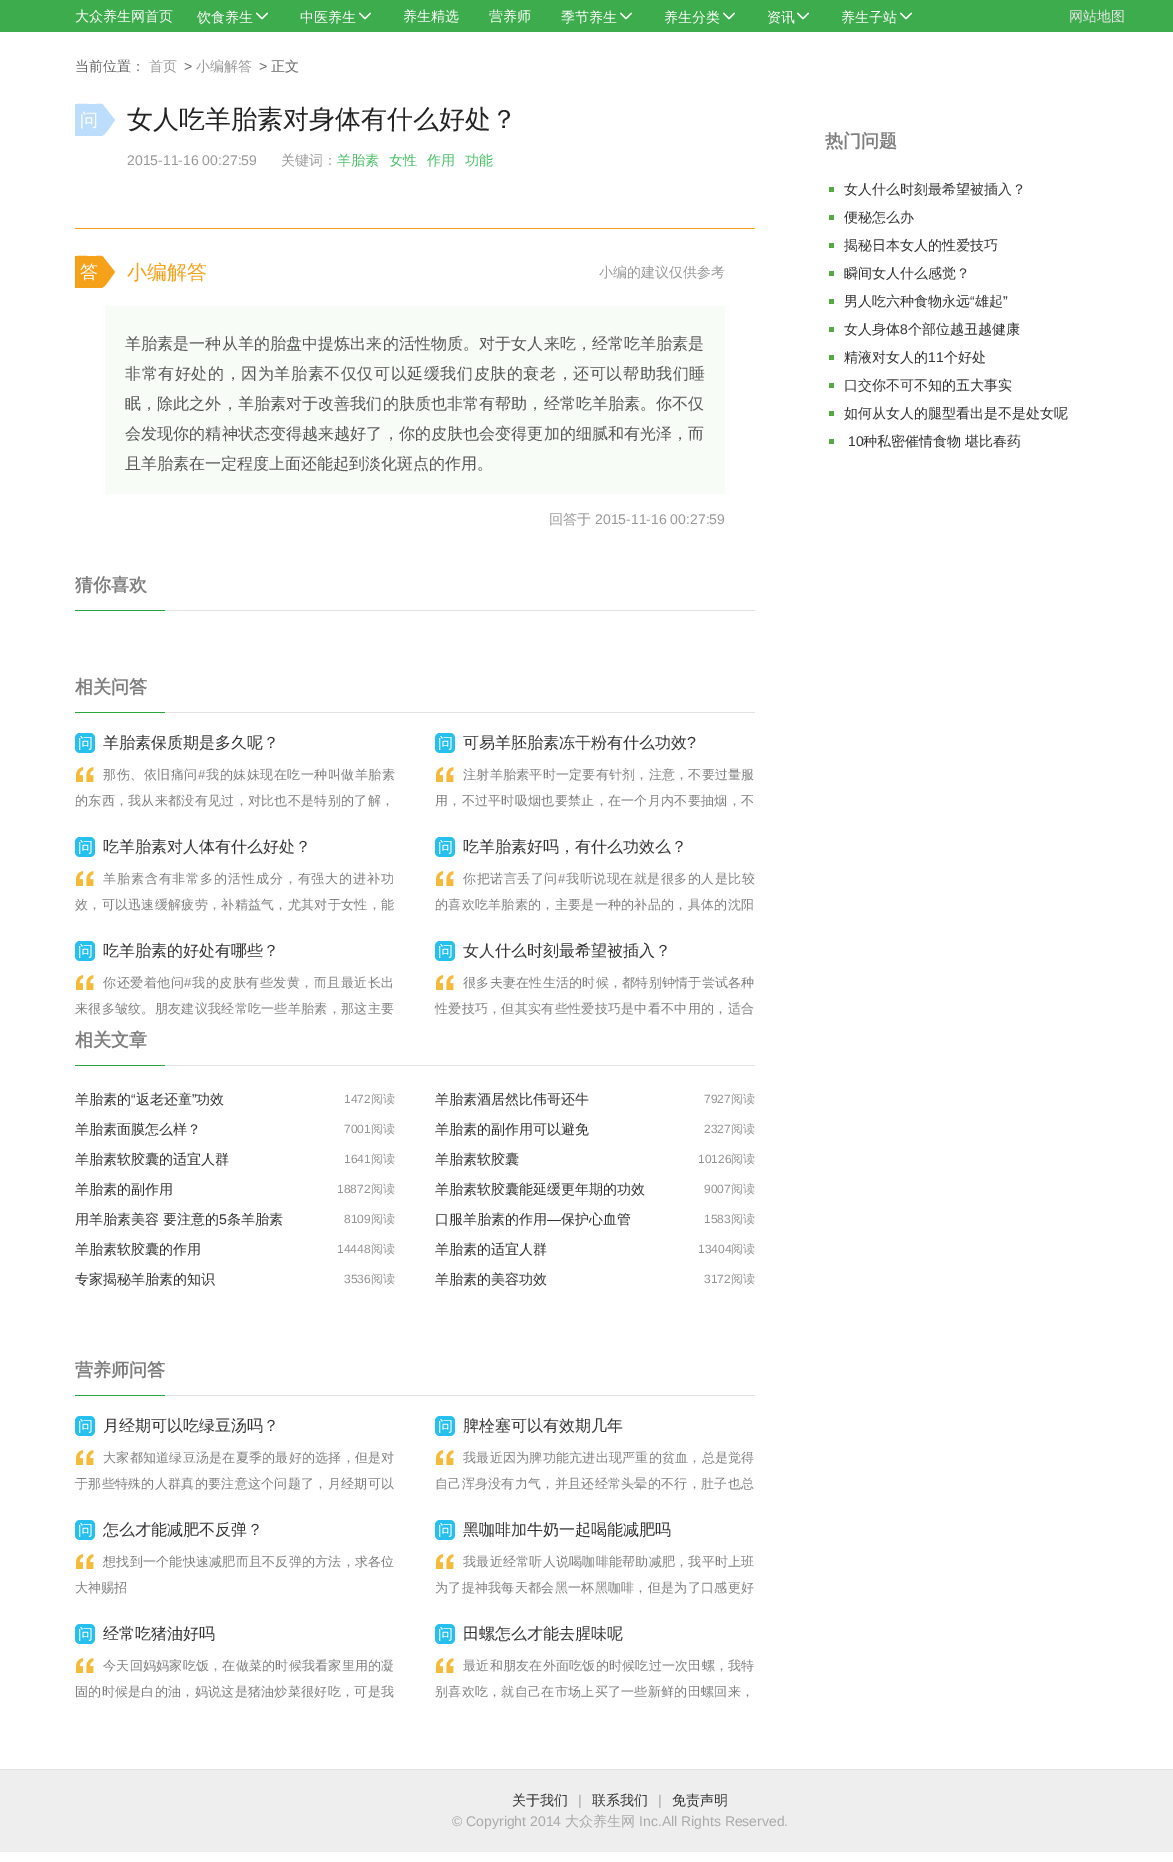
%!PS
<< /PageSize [1173 1862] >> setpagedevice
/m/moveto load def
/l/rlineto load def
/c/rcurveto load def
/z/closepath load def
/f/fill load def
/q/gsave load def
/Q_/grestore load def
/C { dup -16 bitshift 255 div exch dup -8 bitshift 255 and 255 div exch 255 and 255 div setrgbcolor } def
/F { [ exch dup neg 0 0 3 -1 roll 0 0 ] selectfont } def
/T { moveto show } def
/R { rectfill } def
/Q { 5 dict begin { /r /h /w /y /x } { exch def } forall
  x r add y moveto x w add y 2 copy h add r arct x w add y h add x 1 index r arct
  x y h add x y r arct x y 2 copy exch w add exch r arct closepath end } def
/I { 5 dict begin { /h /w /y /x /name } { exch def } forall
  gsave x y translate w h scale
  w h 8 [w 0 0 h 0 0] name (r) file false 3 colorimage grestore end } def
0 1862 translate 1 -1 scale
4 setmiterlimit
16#FFFFFF C
0 0 1173 1862 R
16#3CAC4C C
0 0 1173 32 R
/WenQuanYiZenHei-Medium 14 F
16#FFFFFF C
(大众养生网首页) 75 21 T
(饮食养生) 197 22 T
(1.rgb) 256 12 12 8 I
(中医养生) 300 22 T
(1.rgb) 359 12 12 8 I
(养生精选) 403 21 T
(营养师) 489 21 T
(季节养生) 561 22 T
(1.rgb) 620 12 12 8 I
(养生分类) 664 22 T
(1.rgb) 723 12 12 8 I
(资讯) 767 22 T
(1.rgb) 797 12 12 8 I
(养生子站) 841 22 T
(1.rgb) 900 12 12 8 I
16#E5E5E5 C
(网站地图) 1069 21 T
16#666666 C
(当前位置：) 75 71 T
16#999999 C
(首页) 149 71 T
/LiberationSans-Regular 14 F
16#666666 C
(>) 184 71 T
/WenQuanYiZenHei-Medium 14 F
16#999999 C
(小编解答) 196 71 T
/LiberationSans-Regular 14 F
16#666666 C
(>) 259 71 T
/WenQuanYiZenHei-Medium 14 F
(正文) 271 71 T
q
75 77 680 1652 rectclip
16#BDDDFC C
104 106 m -1 -3 -5 -2 -8 -2 c -8 0 l -21 0 -18 -2 -18 20 c 0 10 -1 12 9 12 c 22 0 l 3 0 5 -4 7 -6 c 7 -10 l z f
Q_
/WenQuanYiZenHei-Medium 18 F
16#FFFFFF C
(问) 80 126 T
/WenQuanYiZenHei-Medium 26 F
16#222222 C
(女人吃羊胎素对身体有什么好处？) 127 128 T
/LiberationSans-Regular 14 F
16#999999 C
(2015-11-16 00:27:59) 127 165 T
/WenQuanYiZenHei-Medium 14 F
(关键词：) 281 165 T
16#49C066 C
(羊胎素) 337 165 T
(女性) 389 165 T
(作用) 427 165 T
(功能) 465 165 T
16#F6A11A C
75 228 680 1 R
q
75 77 680 1652 rectclip
104 258 m -1 -3 -5 -2 -8 -2 c -8 0 l -21 0 -18 -2 -18 20 c 0 10 -1 12 9 12 c 22 0 l 3 0 5 -4 7 -6 c 7 -10 l z f
Q_
/WenQuanYiZenHei-Medium 18 F
16#FFFFFF C
(答) 80 278 T
/WenQuanYiZenHei-Medium 20 F
16#F6A11A C
(小编解答) 127 279 T
/WenQuanYiZenHei-Medium 14 F
16#999999 C
(小编的建议仅供参考) 599 277 T
16#F7FCF6 C
105 306 620 188 R
/WenQuanYiZenHei-Medium 16 F
16#555555 C
125 349 m .1 0 (羊胎素是一种从羊的胎盘中提炼出来的活性物质。对于女人来吃，经常吃羊胎素是) ashow
125 379 m .6 0 (非常有好处的，因为羊胎素不仅仅可以延缓我们皮肤的衰老，还可以帮助我们睡) ashow
125 409 m .1 0 (眠，除此之外，羊胎素对于改善我们的肤质也非常有帮助，经常吃羊胎素。你不仅) ashow
125 439 m .1 0 (会发现你的精神状态变得越来越好了，你的皮肤也会变得更加的细腻和有光泽，而) ashow
(且羊胎素在一定程度上面还能起到淡化斑点的作用。) 125 469 T
/WenQuanYiZenHei-Medium 14 F
16#999999 C
(回答于) 549 524 T
/LiberationSans-Regular 14 F
(2015-11-16 00:27:59) 595 524 T
16#E3E3E3 C
165 610 590 1 R
16#2AA53B C
75 610 90 1 R
/WenQuanYiZenHei-Bold 18 F
16#7F7F7F C
(猜你喜欢) 75 591 T
16#E3E3E3 C
165 712 590 1 R
16#2AA53B C
75 712 90 1 R
16#7F7F7F C
(相关问答) 75 693 T
16#25C0ED C
75 733 20 20 5 Q f
/WenQuanYiZenHei-Medium 15 F
16#FFFFFF C
(问) 78 748 T
/WenQuanYiZenHei-Medium 16 F
16#333333 C
(羊胎素保质期是多久呢？) 103 748 T
(2.rgb) 76 767 18 15 I
/WenQuanYiZenHei-Medium 13 F
16#7F7F7F C
103 779 m .5 0 (那伤、依旧痛问) ashow
/LiberationSans-Regular 13 F
198 779 m .5 0 (#) ashow
/WenQuanYiZenHei-Medium 13 F
206 779 m .5 0 (我的妹妹现在吃一种叫做羊胎素) ashow
75 805 m .3 0 (的东西，我从来都没有见过，对比也不是特别的了解，) ashow
16#25C0ED C
435 733 20 20 5 Q f
/WenQuanYiZenHei-Medium 15 F
16#FFFFFF C
(问) 438 748 T
/WenQuanYiZenHei-Medium 16 F
16#333333 C
(可易羊胚胎素冻干粉有什么功效) 463 748 T
/LiberationSans-Regular 16 F
(?) 687 748 T
(2.rgb) 436 767 18 15 I
/WenQuanYiZenHei-Medium 13 F
16#7F7F7F C
463 779 m .25 0 (注射羊胎素平时一定要有针剂，注意，不要过量服) ashow
435 805 m .3 0 (用，不过平时吸烟也要禁止，在一个月内不要抽烟，不) ashow
16#25C0ED C
75 837 20 20 5 Q f
/WenQuanYiZenHei-Medium 15 F
16#FFFFFF C
(问) 78 852 T
/WenQuanYiZenHei-Medium 16 F
16#333333 C
(吃羊胎素对人体有什么好处？) 103 852 T
(2.rgb) 76 871 18 15 I
/WenQuanYiZenHei-Medium 13 F
16#7F7F7F C
103 883 m .9 0 (羊胎素含有非常多的活性成分，有强大的进补功) ashow
75 909 m .3 0 (效，可以迅速缓解疲劳，补精益气，尤其对于女性，能) ashow
16#25C0ED C
435 837 20 20 5 Q f
/WenQuanYiZenHei-Medium 15 F
16#FFFFFF C
(问) 438 852 T
/WenQuanYiZenHei-Medium 16 F
16#333333 C
(吃羊胎素好吗，有什么功效么？) 463 852 T
(2.rgb) 436 871 18 15 I
/WenQuanYiZenHei-Medium 13 F
16#7F7F7F C
463 883 m .5 0 (你把诺言丢了问) ashow
/LiberationSans-Regular 13 F
558 883 m .5 0 (#) ashow
/WenQuanYiZenHei-Medium 13 F
566 883 m .5 0 (我听说现在就是很多的人是比较) ashow
435 909 m .3 0 (的喜欢吃羊胎素的，主要是一种的补品的，具体的沈阳) ashow
16#25C0ED C
75 941 20 20 5 Q f
/WenQuanYiZenHei-Medium 15 F
16#FFFFFF C
(问) 78 956 T
/WenQuanYiZenHei-Medium 16 F
16#333333 C
(吃羊胎素的好处有哪些？) 103 956 T
(2.rgb) 76 975 18 15 I
/WenQuanYiZenHei-Medium 13 F
16#7F7F7F C
103 987 m .5 0 (你还爱着他问) ashow
/LiberationSans-Regular 13 F
184 987 m .5 0 (#) ashow
/WenQuanYiZenHei-Medium 13 F
192 987 m .5 0 (我的皮肤有些发黄，而且最近长出) ashow
75 1013 m .3 0 (来很多皱纹。朋友建议我经常吃一些羊胎素，那这主要) ashow
16#25C0ED C
435 941 20 20 5 Q f
/WenQuanYiZenHei-Medium 15 F
16#FFFFFF C
(问) 438 956 T
/WenQuanYiZenHei-Medium 16 F
16#333333 C
(女人什么时刻最希望被插入？) 463 956 T
(2.rgb) 436 975 18 15 I
/WenQuanYiZenHei-Medium 13 F
16#7F7F7F C
463 987 m .25 0 (很多夫妻在性生活的时候，都特别钟情于尝试各种) ashow
435 1013 m .3 0 (性爱技巧，但其实有些性爱技巧是中看不中用的，适合) ashow
16#E3E3E3 C
165 1065 590 1 R
16#2AA53B C
75 1065 90 1 R
/WenQuanYiZenHei-Bold 18 F
16#7F7F7F C
(相关文章) 75 1046 T
/WenQuanYiZenHei-Medium 14 F
16#333333 C
(羊胎素的) 75 1104 T
/LiberationSans-Regular 14 F
(“) 131 1104 T
/WenQuanYiZenHei-Medium 14 F
(返老还童) 136 1104 T
/LiberationSans-Regular 14 F
(”) 192 1104 T
/WenQuanYiZenHei-Medium 14 F
(功效) 196 1104 T
/LiberationSans-Regular 12 F
16#939393 C
(1472) 344 1103 T
/WenQuanYiZenHei-Medium 12 F
(阅读) 371 1103 T
/WenQuanYiZenHei-Medium 14 F
16#333333 C
(羊胎素面膜怎么样？) 75 1134 T
/LiberationSans-Regular 12 F
16#939393 C
(7001) 344 1133 T
/WenQuanYiZenHei-Medium 12 F
(阅读) 371 1133 T
/WenQuanYiZenHei-Medium 14 F
16#333333 C
(羊胎素软胶囊的适宜人群) 75 1164 T
/LiberationSans-Regular 12 F
16#939393 C
(1641) 344 1163 T
/WenQuanYiZenHei-Medium 12 F
(阅读) 371 1163 T
/WenQuanYiZenHei-Medium 14 F
16#333333 C
(羊胎素的副作用) 75 1194 T
/LiberationSans-Regular 12 F
16#939393 C
(18872) 337 1193 T
/WenQuanYiZenHei-Medium 12 F
(阅读) 371 1193 T
/WenQuanYiZenHei-Medium 14 F
16#333333 C
(用羊胎素美容 要注意的) 75 1224 T
/LiberationSans-Regular 14 F
(5) 219 1224 T
/WenQuanYiZenHei-Medium 14 F
(条羊胎素) 227 1224 T
/LiberationSans-Regular 12 F
16#939393 C
(8109) 344 1223 T
/WenQuanYiZenHei-Medium 12 F
(阅读) 371 1223 T
/WenQuanYiZenHei-Medium 14 F
16#333333 C
(羊胎素软胶囊的作用) 75 1254 T
/LiberationSans-Regular 12 F
16#939393 C
(14448) 337 1253 T
/WenQuanYiZenHei-Medium 12 F
(阅读) 371 1253 T
/WenQuanYiZenHei-Medium 14 F
16#333333 C
(专家揭秘羊胎素的知识) 75 1284 T
/LiberationSans-Regular 12 F
16#939393 C
(3536) 344 1283 T
/WenQuanYiZenHei-Medium 12 F
(阅读) 371 1283 T
/WenQuanYiZenHei-Medium 14 F
16#333333 C
(羊胎素酒居然比伟哥还牛) 435 1104 T
/LiberationSans-Regular 12 F
16#939393 C
(7927) 704 1103 T
/WenQuanYiZenHei-Medium 12 F
(阅读) 731 1103 T
/WenQuanYiZenHei-Medium 14 F
16#333333 C
(羊胎素的副作用可以避免) 435 1134 T
/LiberationSans-Regular 12 F
16#939393 C
(2327) 704 1133 T
/WenQuanYiZenHei-Medium 12 F
(阅读) 731 1133 T
/WenQuanYiZenHei-Medium 14 F
16#333333 C
(羊胎素软胶囊) 435 1164 T
/LiberationSans-Regular 12 F
16#939393 C
(10126) 698 1163 T
/WenQuanYiZenHei-Medium 12 F
(阅读) 731 1163 T
/WenQuanYiZenHei-Medium 14 F
16#333333 C
(羊胎素软胶囊能延缓更年期的功效) 435 1194 T
/LiberationSans-Regular 12 F
16#939393 C
(9007) 704 1193 T
/WenQuanYiZenHei-Medium 12 F
(阅读) 731 1193 T
/WenQuanYiZenHei-Medium 14 F
16#333333 C
(口服羊胎素的作用) 435 1224 T
/LiberationSans-Regular 14 F
(—) 547 1224 T
/WenQuanYiZenHei-Medium 14 F
(保护心血管) 561 1224 T
/LiberationSans-Regular 12 F
16#939393 C
(1583) 704 1223 T
/WenQuanYiZenHei-Medium 12 F
(阅读) 731 1223 T
/WenQuanYiZenHei-Medium 14 F
16#333333 C
(羊胎素的适宜人群) 435 1254 T
/LiberationSans-Regular 12 F
16#939393 C
(13404) 698 1253 T
/WenQuanYiZenHei-Medium 12 F
(阅读) 731 1253 T
/WenQuanYiZenHei-Medium 14 F
16#333333 C
(羊胎素的美容功效) 435 1284 T
/LiberationSans-Regular 12 F
16#939393 C
(3172) 704 1283 T
/WenQuanYiZenHei-Medium 12 F
(阅读) 731 1283 T
16#E3E3E3 C
165 1395 590 1 R
16#2AA53B C
75 1395 90 1 R
/WenQuanYiZenHei-Bold 18 F
16#7F7F7F C
(营养师问答) 75 1376 T
16#25C0ED C
75 1416 20 20 5 Q f
/WenQuanYiZenHei-Medium 15 F
16#FFFFFF C
(问) 78 1431 T
/WenQuanYiZenHei-Medium 16 F
16#333333 C
(月经期可以吃绿豆汤吗？) 103 1431 T
(2.rgb) 76 1450 18 15 I
/WenQuanYiZenHei-Medium 13 F
16#7F7F7F C
103 1462 m .25 0 (大家都知道绿豆汤是在夏季的最好的选择，但是对) ashow
75 1488 m .3 0 (于那些特殊的人群真的要注意这个问题了，月经期可以) ashow
16#25C0ED C
435 1416 20 20 5 Q f
/WenQuanYiZenHei-Medium 15 F
16#FFFFFF C
(问) 438 1431 T
/WenQuanYiZenHei-Medium 16 F
16#333333 C
(脾栓塞可以有效期几年) 463 1431 T
(2.rgb) 436 1450 18 15 I
/WenQuanYiZenHei-Medium 13 F
16#7F7F7F C
463 1462 m .25 0 (我最近因为脾功能亢进出现严重的贫血，总是觉得) ashow
435 1488 m .3 0 (自己浑身没有力气，并且还经常头晕的不行，肚子也总) ashow
16#25C0ED C
75 1520 20 20 5 Q f
/WenQuanYiZenHei-Medium 15 F
16#FFFFFF C
(问) 78 1535 T
/WenQuanYiZenHei-Medium 16 F
16#333333 C
(怎么才能减肥不反弹？) 103 1535 T
(2.rgb) 76 1554 18 15 I
/WenQuanYiZenHei-Medium 13 F
16#7F7F7F C
103 1566 m .25 0 (想找到一个能快速减肥而且不反弹的方法，求各位) ashow
(大神赐招) 75 1592 T
16#25C0ED C
435 1520 20 20 5 Q f
/WenQuanYiZenHei-Medium 15 F
16#FFFFFF C
(问) 438 1535 T
/WenQuanYiZenHei-Medium 16 F
16#333333 C
(黑咖啡加牛奶一起喝能减肥吗) 463 1535 T
(2.rgb) 436 1554 18 15 I
/WenQuanYiZenHei-Medium 13 F
16#7F7F7F C
463 1566 m .25 0 (我最近经常听人说喝咖啡能帮助减肥，我平时上班) ashow
435 1592 m .3 0 (为了提神我每天都会黑一杯黑咖啡，但是为了口感更好) ashow
16#25C0ED C
75 1624 20 20 5 Q f
/WenQuanYiZenHei-Medium 15 F
16#FFFFFF C
(问) 78 1639 T
/WenQuanYiZenHei-Medium 16 F
16#333333 C
(经常吃猪油好吗) 103 1639 T
(2.rgb) 76 1658 18 15 I
/WenQuanYiZenHei-Medium 13 F
16#7F7F7F C
103 1670 m .25 0 (今天回妈妈家吃饭，在做菜的时候我看家里用的凝) ashow
75 1696 m .3 0 (固的时候是白的油，妈说这是猪油炒菜很好吃，可是我) ashow
16#25C0ED C
435 1624 20 20 5 Q f
/WenQuanYiZenHei-Medium 15 F
16#FFFFFF C
(问) 438 1639 T
/WenQuanYiZenHei-Medium 16 F
16#333333 C
(田螺怎么才能去腥味呢) 463 1639 T
(2.rgb) 436 1658 18 15 I
/WenQuanYiZenHei-Medium 13 F
16#7F7F7F C
463 1670 m .25 0 (最近和朋友在外面吃饭的时候吃过一次田螺，我特) ashow
435 1696 m .3 0 (别喜欢吃，就自己在市场上买了一些新鲜的田螺回来，) ashow
/WenQuanYiZenHei-Bold 18 F
(热门问题) 825 147 T
16#56A844 C
829 187 5 5 R
/WenQuanYiZenHei-Medium 14 F
16#333333 C
(女人什么时刻最希望被插入？) 844 194 T
16#56A844 C
829 215 5 5 R
16#333333 C
(便秘怎么办) 844 222 T
16#56A844 C
829 243 5 5 R
16#333333 C
(揭秘日本女人的性爱技巧) 844 250 T
16#56A844 C
829 271 5 5 R
16#333333 C
(瞬间女人什么感觉？) 844 278 T
16#56A844 C
829 299 5 5 R
16#333333 C
(男人吃六种食物永远) 844 306 T
/LiberationSans-Regular 14 F
(“) 970 306 T
/WenQuanYiZenHei-Medium 14 F
(雄起) 975 306 T
/LiberationSans-Regular 14 F
(”) 1003 306 T
16#56A844 C
829 327 5 5 R
/WenQuanYiZenHei-Medium 14 F
16#333333 C
(女人身体) 844 334 T
/LiberationSans-Regular 14 F
(8) 900 334 T
/WenQuanYiZenHei-Medium 14 F
(个部位越丑越健康) 908 334 T
16#56A844 C
829 355 5 5 R
16#333333 C
(精液对女人的) 844 362 T
/LiberationSans-Regular 14 F
(11) 928 362 T
/WenQuanYiZenHei-Medium 14 F
(个好处) 944 362 T
16#56A844 C
829 383 5 5 R
16#333333 C
(口交你不可不知的五大事实) 844 390 T
16#56A844 C
829 411 5 5 R
16#333333 C
(如何从女人的腿型看出是不是处女呢) 844 418 T
16#56A844 C
829 439 5 5 R
/LiberationSans-Regular 14 F
16#333333 C
(10) 848 446 T
/WenQuanYiZenHei-Medium 14 F
(种私密催情食物 堪比春药) 863 446 T
16#EEEEEE C
0 1770 1173 82 R
16#E2E2E2 C
0 1769 1173 1 R
16#333333 C
(关于我们) 512 1805 T
/LiberationSans-Regular 14 F
16#AAAAAA C
(|) 578 1805 T
/WenQuanYiZenHei-Medium 14 F
16#333333 C
(联系我们) 592 1805 T
/LiberationSans-Regular 14 F
16#AAAAAA C
(|) 658 1805 T
/WenQuanYiZenHei-Medium 14 F
16#333333 C
(免责声明) 672 1805 T
/LiberationSans-Regular 14 F
16#AAAAAA C
(© Copyright 2014) 452 1826 T
/WenQuanYiZenHei-Medium 14 F
(大众养生网) 565 1826 T
/LiberationSans-Regular 14 F
(Inc.All Rights Reserved.) 639 1826 T
showpage
